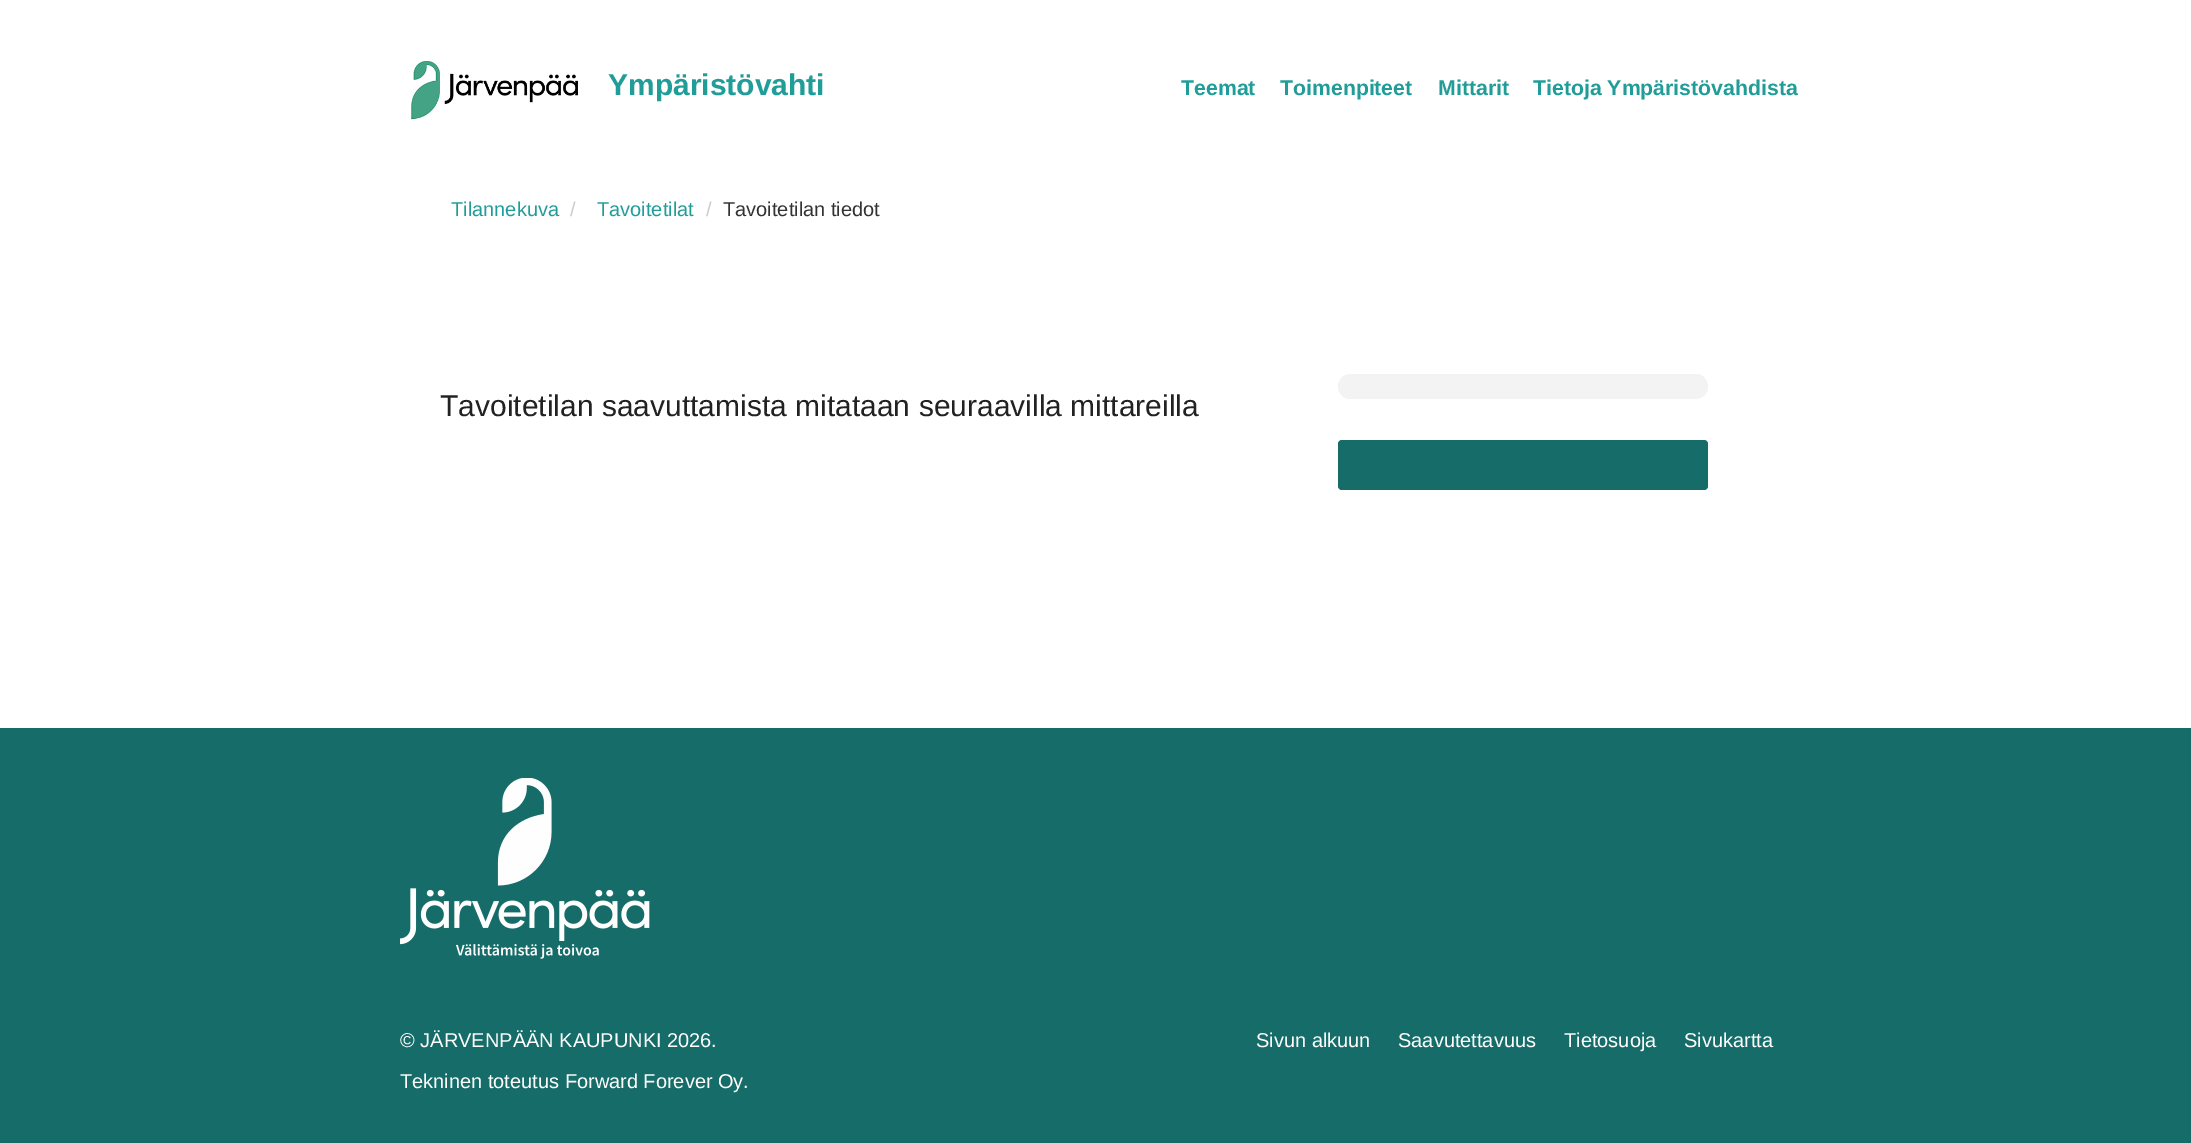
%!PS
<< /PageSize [2191 1143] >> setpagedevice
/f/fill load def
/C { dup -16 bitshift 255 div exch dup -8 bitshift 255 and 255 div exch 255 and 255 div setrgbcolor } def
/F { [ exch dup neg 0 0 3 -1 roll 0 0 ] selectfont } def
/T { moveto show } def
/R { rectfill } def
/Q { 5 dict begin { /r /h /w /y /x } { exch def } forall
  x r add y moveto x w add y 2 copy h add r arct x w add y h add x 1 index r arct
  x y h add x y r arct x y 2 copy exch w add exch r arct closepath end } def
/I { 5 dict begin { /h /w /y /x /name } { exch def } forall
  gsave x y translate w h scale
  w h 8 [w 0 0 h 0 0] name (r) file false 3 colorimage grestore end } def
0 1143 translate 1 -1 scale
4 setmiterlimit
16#FFFFFF C
0 0 2191 1143 R
(1.rgb) 411 61 167 59 I
/LiberationSans-Bold 30 F
16#219D99 C
(Ympäristövahti) 608 95 T
/LiberationSans-Bold 21.25 F
(Teemat) 1181 95 T
(Toimenpiteet) 1280 95 T
(Mittarit) 1438 95 T
(Tietoja Ympäristövahdista) 1533 95 T
/LiberationSans-Regular 20 F
(Tilannekuva) 451 216 T
16#CCCCCC C
(/) 570 216 T
16#219D99 C
(Tavoitetilat) 597 216 T
16#CCCCCC C
(/) 706 216 T
16#333333 C
(Tavoitetilan tiedot) 723 216 T
/LiberationSans-Regular 30 F
16#232222 C
(Tavoitetilan saavuttamista mitataan seuraavilla mittareilla) 440 416 T
16#F3F3F3 C
1338 374 370 25 12.5 Q f
16#166C68 C
1338 440 370 50 4 Q f
0 728 2191 415 R
(2.rgb) 400 778 250 181 I
/LiberationSans-Regular 20 F
16#FFFFFF C
(© JÄRVENPÄÄN KAUPUNKI 2026.) 400 1047 T
(Tekninen toteutus Forward Forever Oy.) 400 1088 T
(Sivun alkuun) 1256 1047 T
(Saavutettavuus) 1398 1047 T
(Tietosuoja) 1564 1047 T
(Sivukartta) 1684 1047 T
showpage
